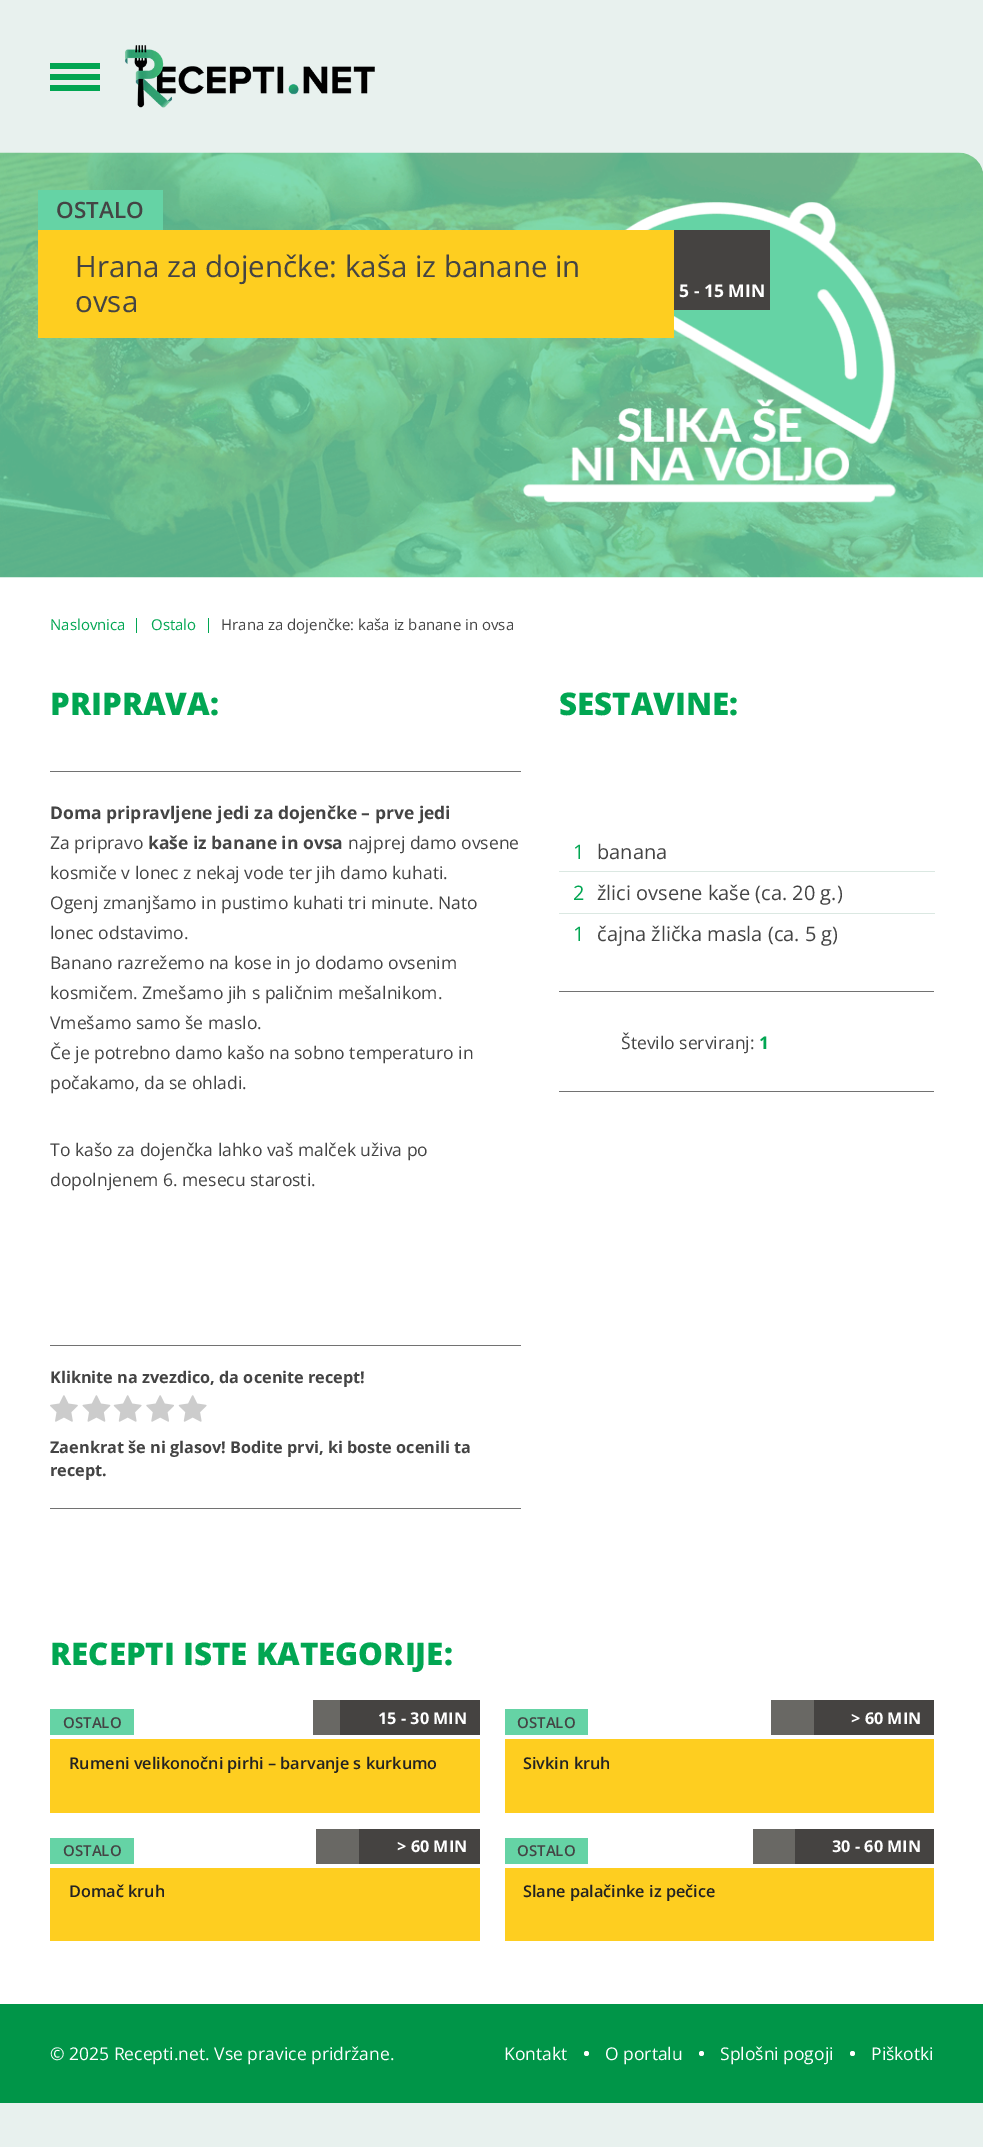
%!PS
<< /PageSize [983 2147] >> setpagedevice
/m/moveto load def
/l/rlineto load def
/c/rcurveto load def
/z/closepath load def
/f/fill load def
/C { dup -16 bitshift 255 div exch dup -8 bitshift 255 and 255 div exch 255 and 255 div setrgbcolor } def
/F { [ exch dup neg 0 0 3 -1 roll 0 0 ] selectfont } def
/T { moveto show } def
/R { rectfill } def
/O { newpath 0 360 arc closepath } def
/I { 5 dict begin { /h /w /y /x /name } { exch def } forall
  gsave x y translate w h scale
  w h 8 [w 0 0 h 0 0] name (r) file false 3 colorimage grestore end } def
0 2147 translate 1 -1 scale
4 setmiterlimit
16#E8F1EE C
0 0 983 2147 R
16#01A652 C
50 63 50 6 R
50 74 50 6 R
50 85 50 6 R
(1.rgb) 125 45 250 63 I
16#FFFFFF C
0 153 m 959 0 l 14 0 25 11 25 25 c 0 1925 l -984 0 l z f
(2.rgb) 0 152 983 426 I
16#65D3A5 C
38 190 125 40 R
/OpenSans-SemiBold 22.5 F
16#444444 C
(OSTALO) 56 218 T
16#FECE20 C
38 230 636 108 R
/OpenSans-Regular 29.5 F
16#444444 C
(Hrana za dojenčke: kaša iz banane in) 75 277 T
(ovsa) 75 312 T
16#454341 C
674 230 96 80 R
/OpenSans-Bold 17.5 F
16#FFFFFF C
(5 - 15 MIN) 679 297 T
/OpenSans-Regular 15 F
16#01A652 C
(Naslovnica) 50 630 T
136 618 1 15 R
(Ostalo) 151 630 T
208 618 1 15 R
16#444444 C
(Hrana za dojenčke: kaša iz banane in ovsa) 221 630 T
16#727272 C
50 771 471 1 R
/OpenSans-ExtraBold 31.25 F
16#01A652 C
(PRIPRAVA:) 50 715 T
/OpenSans-Bold 17.5 F
16#444444 C
(Doma pripravljene jedi za dojenčke – prve jedi) 50 819 T
/OpenSans-Regular 17.5 F
(Za pripravo) 50 849 T
/OpenSans-Bold 17.5 F
(kaše iz banane in ovsa) 148 849 T
/OpenSans-Regular 17.5 F
(najprej damo ovsene) 348 849 T
(kosmiče v lonec z nekaj vode ter jih damo kuhati.) 50 879 T
(Ogenj zmanjšamo in pustimo kuhati tri minute. Nato) 50 909 T
(lonec odstavimo.) 50 939 T
(Banano razrežemo na kose in jo dodamo ovsenim) 50 969 T
(kosmičem. Zmešamo jih s paličnim mešalnikom.) 50 999 T
(Vmešamo samo še maslo.) 50 1029 T
(Če je potrebno damo kašo na sobno temperaturo in) 50 1059 T
(počakamo, da se ohladi.) 50 1089 T
(To kašo za dojenčka lahko vaš malček uživa po) 50 1156 T
(dopolnjenem 6. mesecu starosti.) 50 1186 T
/OpenSans-ExtraBold 31.25 F
16#01A652 C
(SESTAVINE:) 559 715 T
16#727272 C
559 991 375 1 R
/OpenSans-Regular 20 F
16#01A652 C
(1) 573 859 T
16#DBE8E2 C
559 871 376 1 R
16#444444 C
(banana) 597 859 T
16#01A652 C
(2) 573 900 T
16#DBE8E2 C
559 913 376 1 R
16#444444 C
(žlici ovsene kaše \(ca. 20 g.\)) 597 900 T
16#01A652 C
(1) 573 941 T
16#444444 C
(čajna žlička masla \(ca. 5 g\)) 597 941 T
16#727272 C
559 1091 375 1 R
/OpenSans-Regular 17.5 F
16#444444 C
(Število serviranj:) 621 1049 T
/OpenSans-Bold 17.5 F
16#01A652 C
(1) 759 1049 T
16#727272 C
50 1345 471 1 R
50 1508 471 1 R
/OpenSans-Bold 16.25 F
16#444444 C
(Kliknite na zvezdico, da ocenite recept!) 50 1383 T
(3.rgb) 50 1395 28 27 I
(4.rgb) 82 1395 29 27 I
(5.rgb) 113 1395 29 27 I
(6.rgb) 146 1395 28 27 I
(5.rgb) 178 1395 29 27 I
(Zaenkrat še ni glasov! Bodite prvi, ki boste ocenili ta) 50 1453 T
(recept.) 50 1476 T
/OpenSans-ExtraBold 31.25 F
16#01A652 C
(RECEPTI ISTE KATEGORIJE:) 50 1665 T
16#65D3A5 C
50 1709 84 26 R
/OpenSans-SemiBold 15 F
16#444444 C
(OSTALO) 63 1728 T
16#696864 C
313 1700 27 35 R
16#454341 C
340 1700 140 35 R
/OpenSans-Bold 16.25 F
16#FFFFFF C
(15 - 30 MIN) 378 1724 T
16#FECE20 C
50 1739 430 74 R
/OpenSans-SemiBold 16.25 F
16#222222 C
(Rumeni velikonočni pirhi – barvanje s kurkumo) 69 1769 T
16#65D3A5 C
505 1709 83 26 R
/OpenSans-SemiBold 15 F
16#444444 C
(OSTALO) 517 1728 T
16#696864 C
771 1700 43 35 R
16#454341 C
814 1700 120 35 R
/OpenSans-Bold 16.25 F
16#FFFFFF C
(> 60 MIN) 851 1724 T
16#FECE20 C
505 1739 429 74 R
/OpenSans-SemiBold 16.25 F
16#222222 C
(Sivkin kruh) 523 1769 T
16#65D3A5 C
50 1838 84 26 R
/OpenSans-SemiBold 15 F
16#444444 C
(OSTALO) 63 1856 T
16#696864 C
316 1829 43 35 R
16#454341 C
359 1829 121 35 R
/OpenSans-Bold 16.25 F
16#FFFFFF C
(> 60 MIN) 397 1852 T
16#FECE20 C
50 1868 430 73 R
/OpenSans-SemiBold 16.25 F
16#222222 C
(Domač kruh) 69 1897 T
16#65D3A5 C
505 1838 83 26 R
/OpenSans-SemiBold 15 F
16#444444 C
(OSTALO) 517 1856 T
16#696864 C
753 1829 42 35 R
16#454341 C
795 1829 139 35 R
/OpenSans-Bold 16.25 F
16#FFFFFF C
(30 - 60 MIN) 832 1852 T
16#FECE20 C
505 1868 429 73 R
/OpenSans-SemiBold 16.25 F
16#222222 C
(Slane palačinke iz pečice) 523 1897 T
16#009548 C
0 2004 983 99 R
/OpenSans-Regular 17.5 F
16#FFFFFF C
(© 2025 Recepti.net. Vse pravice pridržane.) 50 2060 T
(Kontakt) 504 2060 T
586.5 2053.5 2.5 O f
(O portalu) 605 2060 T
701.5 2053.5 2.5 O f
(Splošni pogoji) 720 2060 T
852.5 2053.5 2.5 O f
(Piškotki) 871 2060 T
showpage
